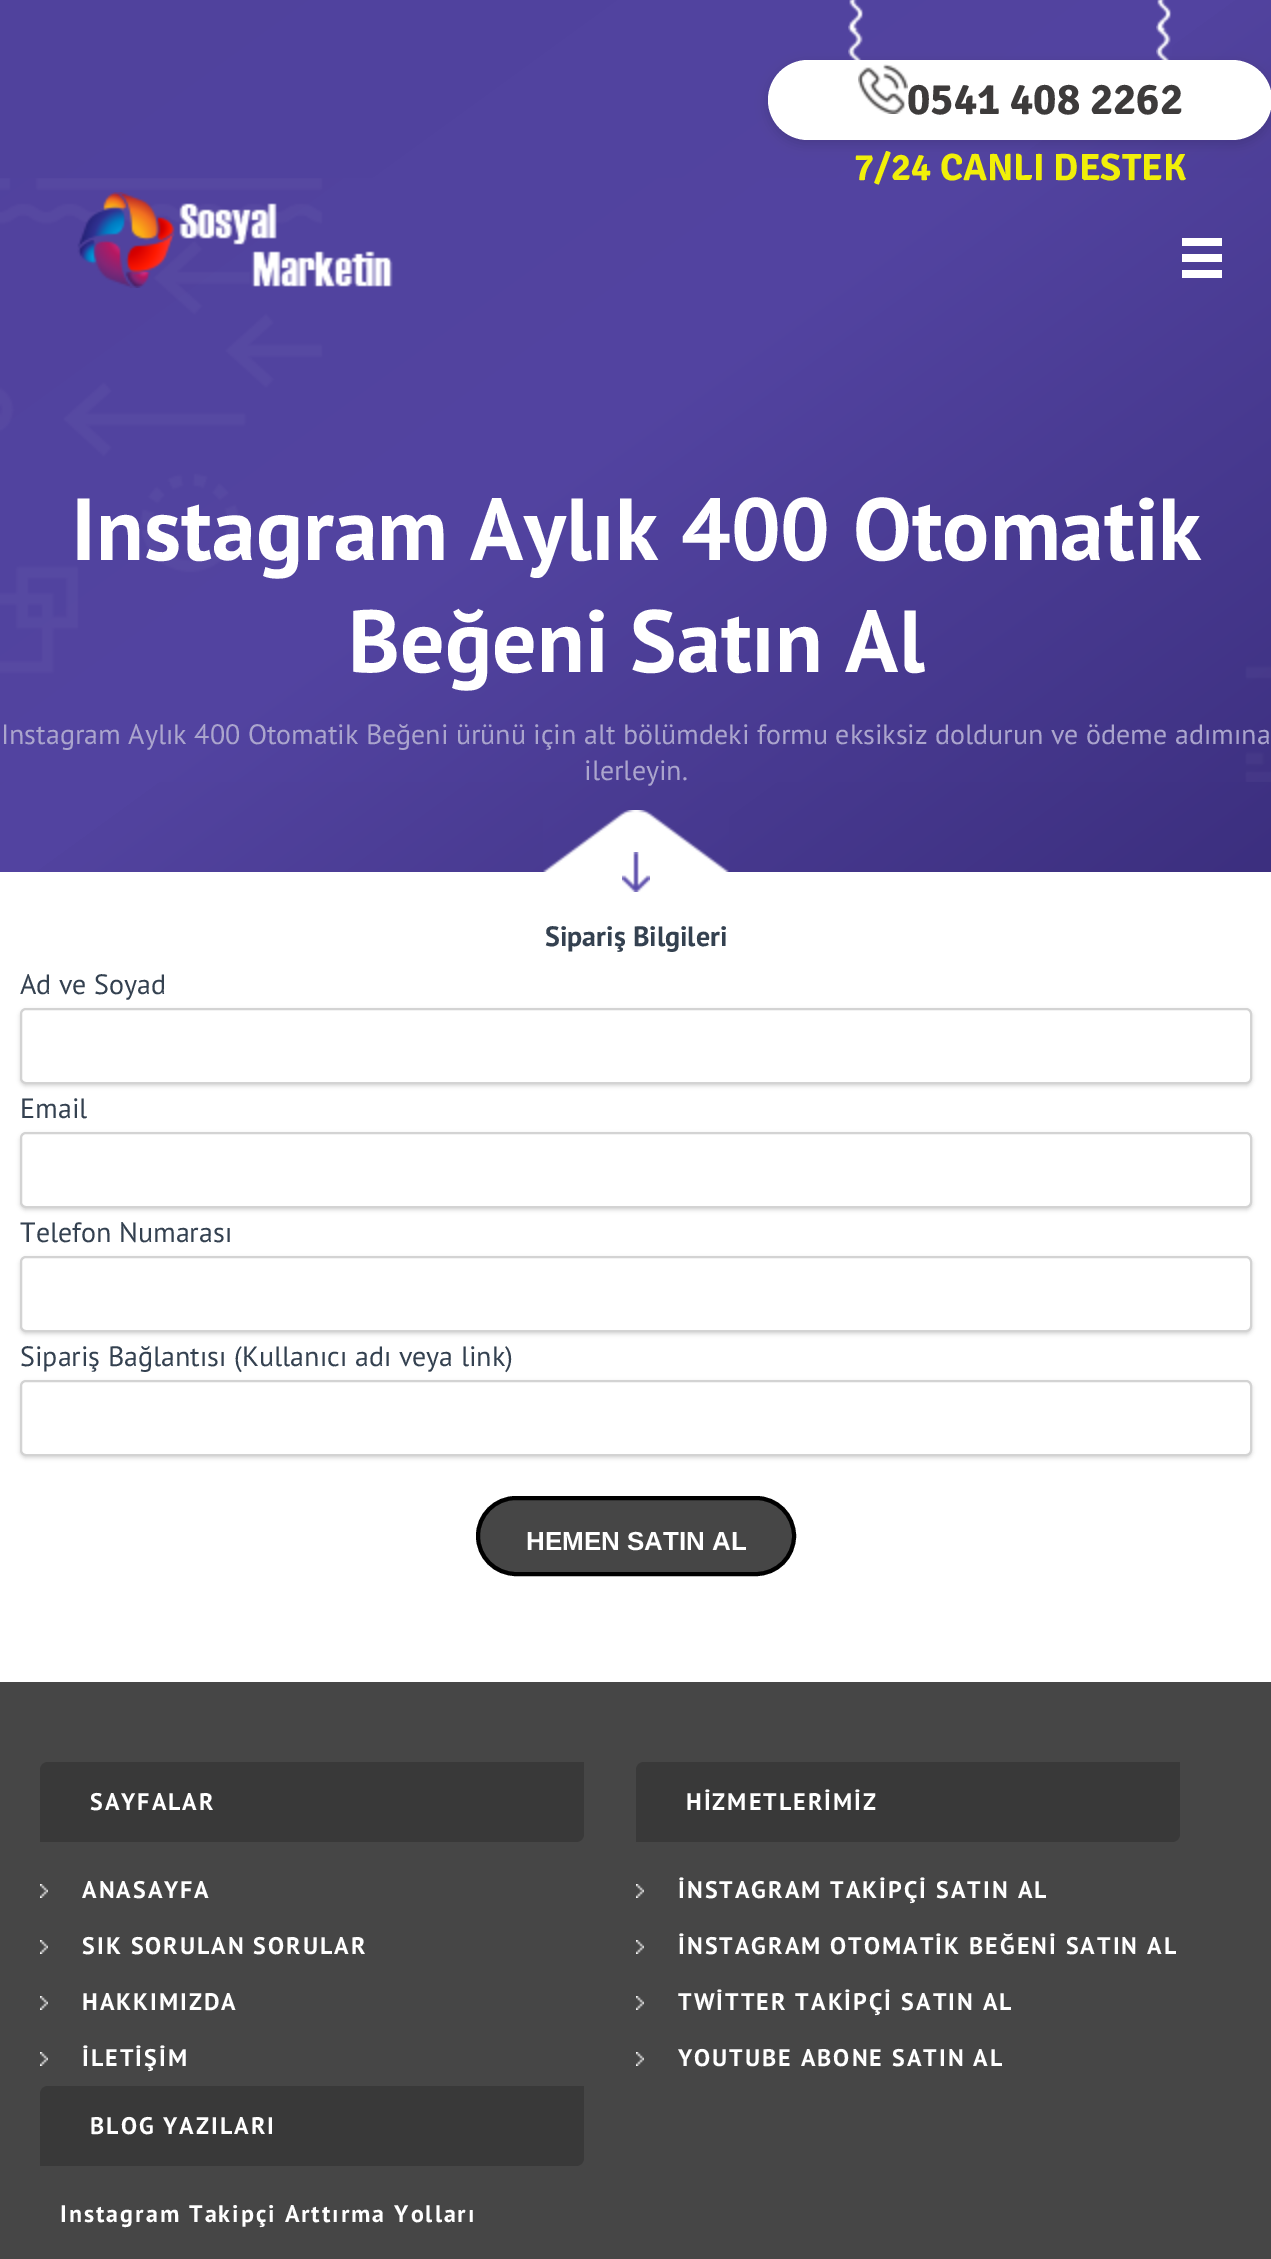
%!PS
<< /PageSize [1271 2259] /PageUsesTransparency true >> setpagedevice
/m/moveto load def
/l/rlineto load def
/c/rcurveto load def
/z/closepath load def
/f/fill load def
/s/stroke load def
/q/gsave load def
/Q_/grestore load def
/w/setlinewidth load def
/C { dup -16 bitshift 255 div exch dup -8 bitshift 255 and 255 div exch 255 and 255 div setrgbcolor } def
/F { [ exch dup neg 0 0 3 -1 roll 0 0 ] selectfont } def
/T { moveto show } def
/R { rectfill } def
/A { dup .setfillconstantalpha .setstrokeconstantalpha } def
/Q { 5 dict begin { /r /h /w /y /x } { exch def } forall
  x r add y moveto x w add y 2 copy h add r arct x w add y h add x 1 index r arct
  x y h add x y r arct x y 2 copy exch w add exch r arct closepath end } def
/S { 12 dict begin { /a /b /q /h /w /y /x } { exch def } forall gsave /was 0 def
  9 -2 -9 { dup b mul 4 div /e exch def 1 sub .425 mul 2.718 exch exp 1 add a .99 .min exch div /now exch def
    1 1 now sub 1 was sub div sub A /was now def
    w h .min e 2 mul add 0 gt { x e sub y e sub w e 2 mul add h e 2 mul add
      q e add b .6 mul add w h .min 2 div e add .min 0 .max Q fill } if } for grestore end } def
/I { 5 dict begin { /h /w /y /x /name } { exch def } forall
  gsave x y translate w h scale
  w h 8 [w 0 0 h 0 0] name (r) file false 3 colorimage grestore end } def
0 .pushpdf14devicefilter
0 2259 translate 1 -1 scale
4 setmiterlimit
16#FFFFFF C
0 0 1271 2259 R
q 0 0 m 1271 0 l 0 872 l -1271 0 l z clip newpath
<< /ShadingType 2 /ColorSpace /DeviceRGB /Coords [202 -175 1070 1019] /Extend [true true] /Function << /FunctionType 3 /Domain [0 1] /Functions [<< /FunctionType 2 /Domain [0 1] /C0 [.314 .259 .616] /C1 [.322 .263 .627] /N 1 >> << /FunctionType 2 /Domain [0 1] /C0 [.322 .263 .627] /C1 [.235 .184 .498] /N 1 >>] /Bounds [.5] /Encode [0 1 0 1] >> >> shfill Q_
(1.rgb) 848 0 16 60 I
(2.rgb) 1156 0 16 60 I
16#000000 C
768 64 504 80 40 6 .14 S
16#FFFFFF C
768 60 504 80 40 Q f
(3.rgb) 858 64 50 50 I
/SignikaNegative-Bold 44 F
16#3D3B3B C
(0541 408 2262) 907 114 T
(4.rgb) 0 178 1271 604 I
/SignikaNegative-Bold 38 F
16#F1EF09 C
(7/24 CANLI DESTEK) 854 180 T
/PTSans-Bold 88 F
16#FFFFFF C
(Instagram Aylık 400 Otomatik) 71 560 T
(Beğeni Satın Al) 348 672 T
/PTSans-Regular 28 F
16#ABA5CD C
(Instagram Aylık 400 Otomatik Beğeni ürünü için alt bölümdeki formu eksiksiz doldurun ve ödeme adımına) 1 744 T
(ilerleyin.) 584 780 T
(5.rgb) 543 810 186 62 I
(6.rgb) 622 852 28 40 I
/PTSans-Bold 28 F
16#344150 C
(Sipariş Bilgileri) 545 946 T
/PTSans-Regular 28 F
(Ad ve Soyad) 20 994 T
16#D3D3D3 C
20 1010 1232 76 6 2 .89 S
16#FFFFFF C
21 1009 1230 74 5 Q q f Q_
16#D3D3D3 C
2 w
s
16#344150 C
(Email) 20 1118 T
16#D3D3D3 C
20 1134 1232 76 6 2 .89 S
16#FFFFFF C
21 1133 1230 74 5 Q q f Q_
16#D3D3D3 C
s
16#344150 C
(Telefon Numarası) 20 1242 T
16#D3D3D3 C
20 1258 1232 76 6 2 .89 S
16#FFFFFF C
21 1257 1230 74 5 Q q f Q_
16#D3D3D3 C
s
16#344150 C
(Sipariş Bağlantısı \(Kullanıcı adı veya link\)) 20 1366 T
16#D3D3D3 C
20 1382 1232 76 6 2 .89 S
16#FFFFFF C
21 1381 1230 74 5 Q q f Q_
16#D3D3D3 C
s
16#464646 C
478 1498 316 76 38 Q q f Q_
16#000000 C
4 w
s
/LiberationSans-Bold 26 F
16#FFFFFF C
(HEMEN SATIN AL) 526 1550 T
16#464646 C
0 1682 1271 577 R
16#393939 C
48 1762 m 536 0 l 0 72 l 0 4.5 -3.5 8 -8 8 c -536 0 l 0 -72 l 0 -4.5 3.5 -8 8 -8 c z f
/PTSans-Bold 24 F
16#FFFFFF C
90 1810 m 2 0 (SAYFALAR) ashow
(7.rgb) 40 1884 8 14 I
82 1898 m 2 0 (ANASAYFA) ashow
(7.rgb) 40 1940 8 14 I
82 1954 m 2 0 (SIK SORULAN SORULAR) ashow
(7.rgb) 40 1996 8 14 I
82 2010 m 2 0 (HAKKIMIZDA) ashow
(7.rgb) 40 2052 8 14 I
82 2066 m 2 0 (İLETİŞİM) ashow
16#393939 C
644 1762 m 536 0 l 0 72 l 0 4.5 -3.5 8 -8 8 c -536 0 l 0 -72 l 0 -4.5 3.5 -8 8 -8 c z f
16#FFFFFF C
686 1810 m 2 0 (HİZMETLERİMİZ) ashow
(7.rgb) 636 1884 8 14 I
678 1898 m 2 0 (İNSTAGRAM TAKİPÇİ SATIN AL) ashow
(7.rgb) 636 1940 8 14 I
678 1954 m 2 0 (İNSTAGRAM OTOMATİK BEĞENİ SATIN AL) ashow
(7.rgb) 636 1996 8 14 I
678 2010 m 2 0 (TWİTTER TAKİPÇİ SATIN AL) ashow
(7.rgb) 636 2052 8 14 I
678 2066 m 2 0 (YOUTUBE ABONE SATIN AL) ashow
16#393939 C
48 2086 m 536 0 l 0 72 l 0 4.5 -3.5 8 -8 8 c -536 0 l 0 -72 l 0 -4.5 3.5 -8 8 -8 c z f
16#FFFFFF C
90 2134 m 2 0 (BLOG YAZILARI) ashow
60 2222 m 2 0 (Instagram Takipçi Arttırma Yolları) ashow
(8.rgb) 77 192 316 96 I
1182 254 40 8 R
1182 238 40 8 R
1182 270 40 8 R
.poppdf14devicefilter showpage
